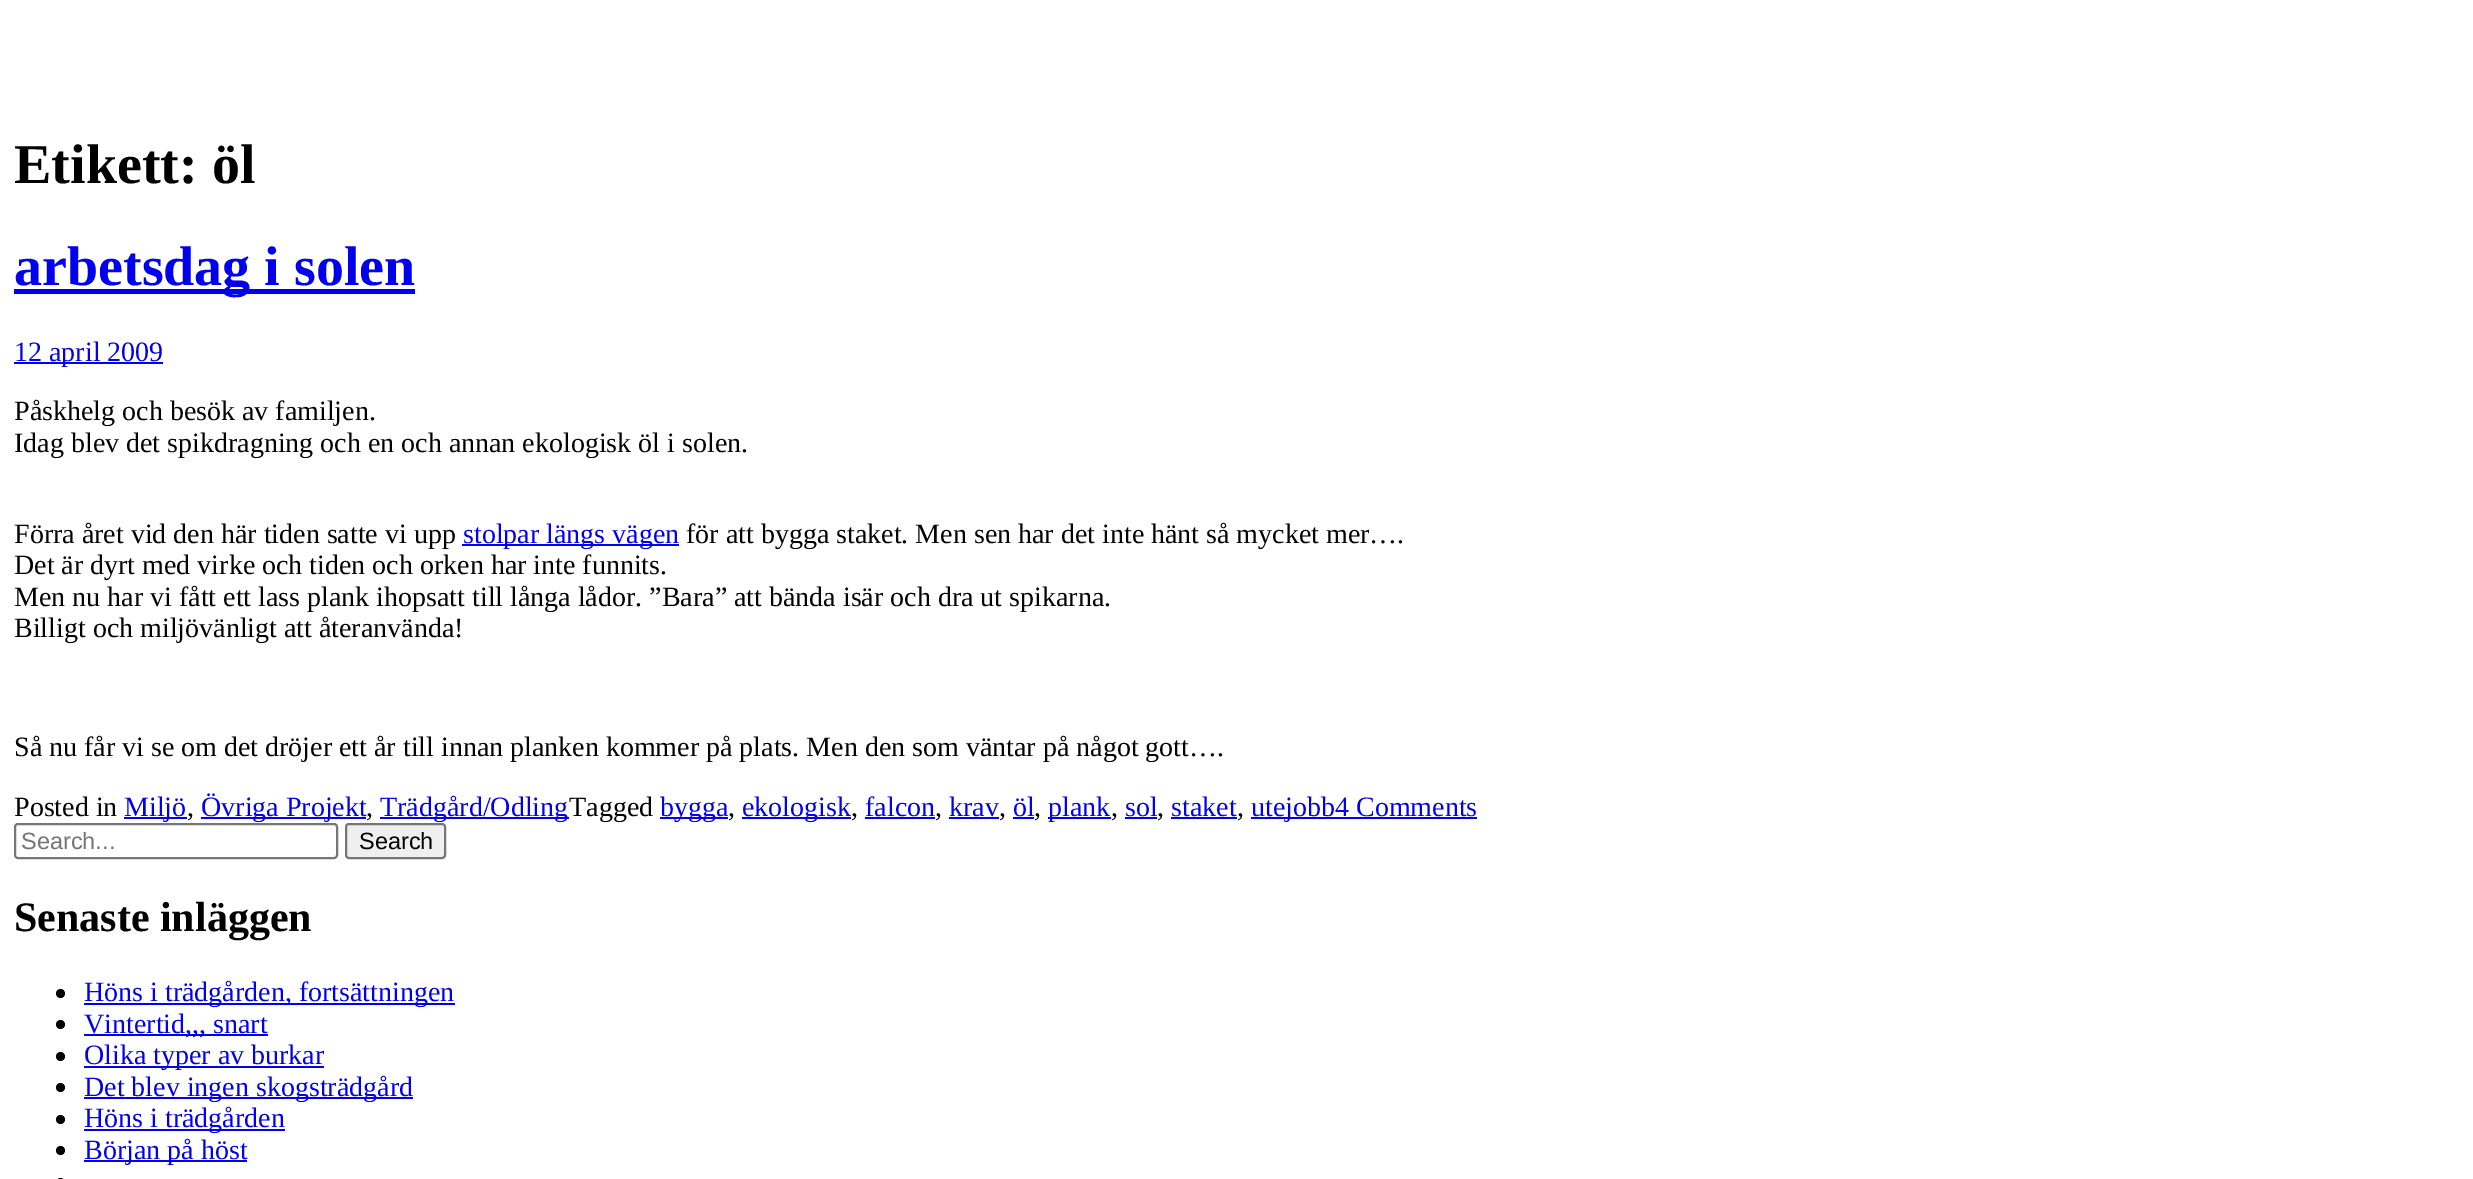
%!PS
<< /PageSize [2473 1179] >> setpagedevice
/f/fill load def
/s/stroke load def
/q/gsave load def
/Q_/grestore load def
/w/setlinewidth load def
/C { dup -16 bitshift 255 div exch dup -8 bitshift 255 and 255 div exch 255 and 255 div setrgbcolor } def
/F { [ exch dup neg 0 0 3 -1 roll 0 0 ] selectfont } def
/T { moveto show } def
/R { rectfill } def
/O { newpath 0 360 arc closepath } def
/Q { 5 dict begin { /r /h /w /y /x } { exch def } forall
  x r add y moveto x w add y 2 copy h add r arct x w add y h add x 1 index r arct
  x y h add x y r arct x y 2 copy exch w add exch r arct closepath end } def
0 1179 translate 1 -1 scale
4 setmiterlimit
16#FFFFFF C
0 0 2473 1179 R
/LiberationSerif-Bold 56 F
16#000000 C
(Etikett: öl) 14 183 T
16#0000EE C
14 289 401 5 R
(arbetsdag i solen) 14 285 T
14 362 149 2 R
/LiberationSerif-Regular 28 F
(12 april 2009) 14 361 T
16#000000 C
(Påskhelg och besök av familjen.) 14 420 T
(Idag blev det spikdragning och en och annan ekologisk öl i solen.) 14 452 T
(Förra året vid den här tiden satte vi upp) 14 543 T
16#0000EE C
462 544 217 2 R
(stolpar längs vägen) 463 543 T
16#000000 C
(för att bygga staket. Men sen har det inte hänt så mycket mer….) 686 543 T
(Det är dyrt med virke och tiden och orken har inte funnits.) 14 574 T
(Men nu har vi fått ett lass plank ihopsatt till långa lådor. ”Bara” att bända isär och dra ut spikarna.) 14 606 T
(Billigt och miljövänligt att återanvända!) 14 637 T
(Så nu får vi se om det dröjer ett år till innan planken kommer på plats. Men den som väntar på något gott….) 14 756 T
(Posted in) 14 816 T
16#0000EE C
124 817 63 2 R
(Miljö) 124 816 T
16#000000 C
(,) 187 816 T
16#0000EE C
201 817 165 2 R
(Övriga Projekt) 201 816 T
16#000000 C
(,) 366 816 T
16#0000EE C
380 817 189 2 R
(Trädgård/Odling) 380 816 T
16#000000 C
(Tagged) 569 816 T
16#0000EE C
660 817 68 2 R
(bygga) 660 816 T
16#000000 C
(,) 728 816 T
16#0000EE C
742 817 109 2 R
(ekologisk) 742 816 T
16#000000 C
(,) 851 816 T
16#0000EE C
(falcon) 865 816 T
16#000000 C
(,) 935 816 T
16#0000EE C
865 817 70 2 R
(krav) 949 816 T
16#000000 C
(,) 999 816 T
16#0000EE C
949 817 50 2 R
(öl) 1013 816 T
16#000000 C
(,) 1034 816 T
16#0000EE C
1013 817 21 2 R
1048 817 63 2 R
(plank) 1048 816 T
16#000000 C
(,) 1111 816 T
16#0000EE C
(sol) 1125 816 T
16#000000 C
(,) 1157 816 T
16#0000EE C
1125 817 32 2 R
(staket) 1171 816 T
16#000000 C
(,) 1237 816 T
16#0000EE C
1171 817 66 2 R
1251 817 226 2 R
(utejobb4 Comments) 1251 816 T
16#767676 C
2 w
15 824 322 34 3 Q s
/LiberationSans-Regular 23.5 F
16#757575 C
(Search...) 21 849 T
16#EFEFEF C
346 824 99 34 3 Q q f Q_
16#767676 C
s
16#000000 C
(Search) 359 849 T
/LiberationSerif-Bold 42 F
(Senaste inläggen) 14 931 T
60.5 993.5 4.5 O f
16#0000EE C
84 1003 371 2 R
/LiberationSerif-Regular 28 F
(Höns i trädgården, fortsättningen) 84 1001 T
16#000000 C
60.5 1024.5 4.5 O f
16#0000EE C
84 1034 184 2 R
(Vintertid,,, snart) 84 1033 T
16#000000 C
60.5 1056.5 4.5 O f
16#0000EE C
84 1066 240 2 R
(Olika typer av burkar) 84 1064 T
16#000000 C
60.5 1087.5 4.5 O f
16#0000EE C
84 1097 329 2 R
(Det blev ingen skogsträdgård) 84 1096 T
16#000000 C
60.5 1119.5 4.5 O f
16#0000EE C
84 1129 201 2 R
(Höns i trädgården) 84 1127 T
16#000000 C
60.5 1150.5 4.5 O f
16#0000EE C
84 1160 163 2 R
(Början på höst) 84 1159 T
16#000000 C
56 1178 9 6 4.5 Q f
showpage
